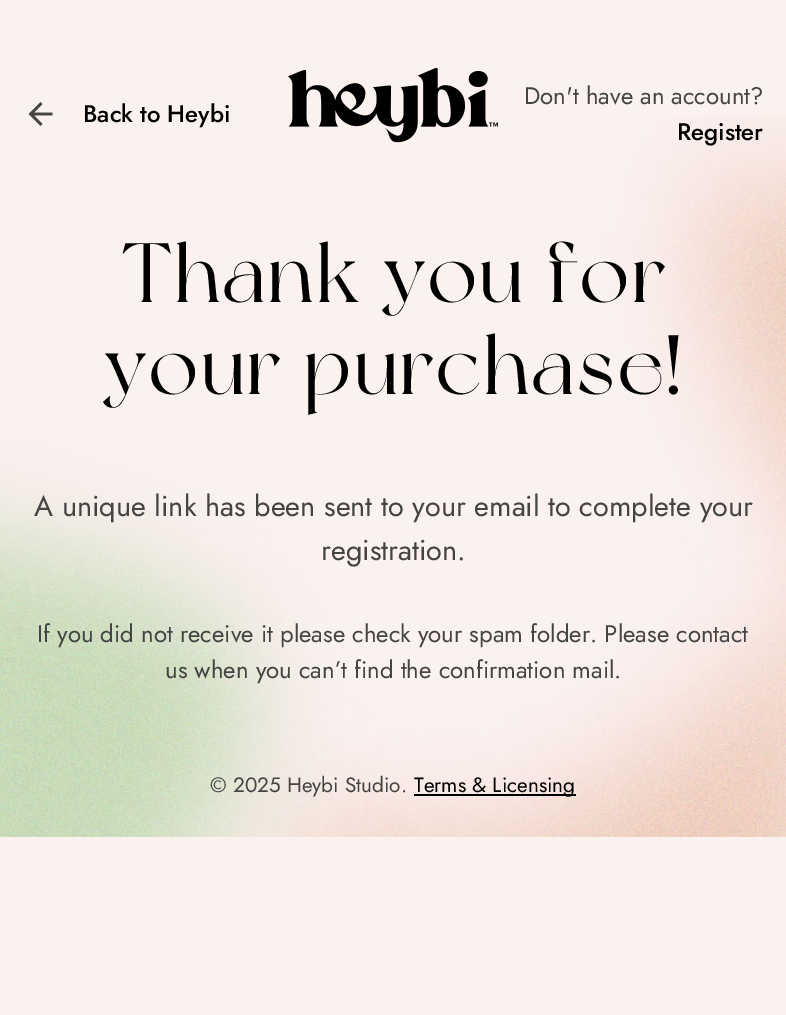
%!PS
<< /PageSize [786 1015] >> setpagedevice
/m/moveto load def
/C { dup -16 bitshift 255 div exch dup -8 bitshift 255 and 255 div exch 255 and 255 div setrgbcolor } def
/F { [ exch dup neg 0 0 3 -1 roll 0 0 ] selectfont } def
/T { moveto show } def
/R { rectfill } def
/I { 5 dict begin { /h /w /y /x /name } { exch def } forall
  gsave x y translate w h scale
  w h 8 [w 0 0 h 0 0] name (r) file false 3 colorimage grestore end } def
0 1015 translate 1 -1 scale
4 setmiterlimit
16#FBF1EF C
0 0 786 1015 R
(1.rgb) 0 117 786 720 I
(2.rgb) 28 102 25 24 I
/Jost-Medium 24 F
16#000000 C
(Back to Heybi) 83 122 T
(3.rgb) 288 68 210 75 I
/Jost-Regular 24 F
16#444444 C
(Don't have an account?) 524 104 T
/Jost-Medium 24 F
16#000000 C
(Register) 677 140 T
/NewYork-Regular 84 F
121 302 m 1.75 0 (Thank you for) ashow
103 394 m 1.75 0 (your purchase!) ashow
/Jost-Regular 28.8 F
16#444444 C
(A unique link has been sent to your email to complete your) 34 516 T
(registration.) 321 560 T
/Jost-Regular 24 F
(If you did not receive it please check your spam folder. Please contact) 37 642 T
(us when you can’t find the confirmation mail.) 165 678 T
/Jost-Regular 20.75 F
(© 2025 Heybi Studio.) 210 792 T
16#000000 C
414 794 162 2 R
(Terms & Licensing) 414 792 T
showpage
